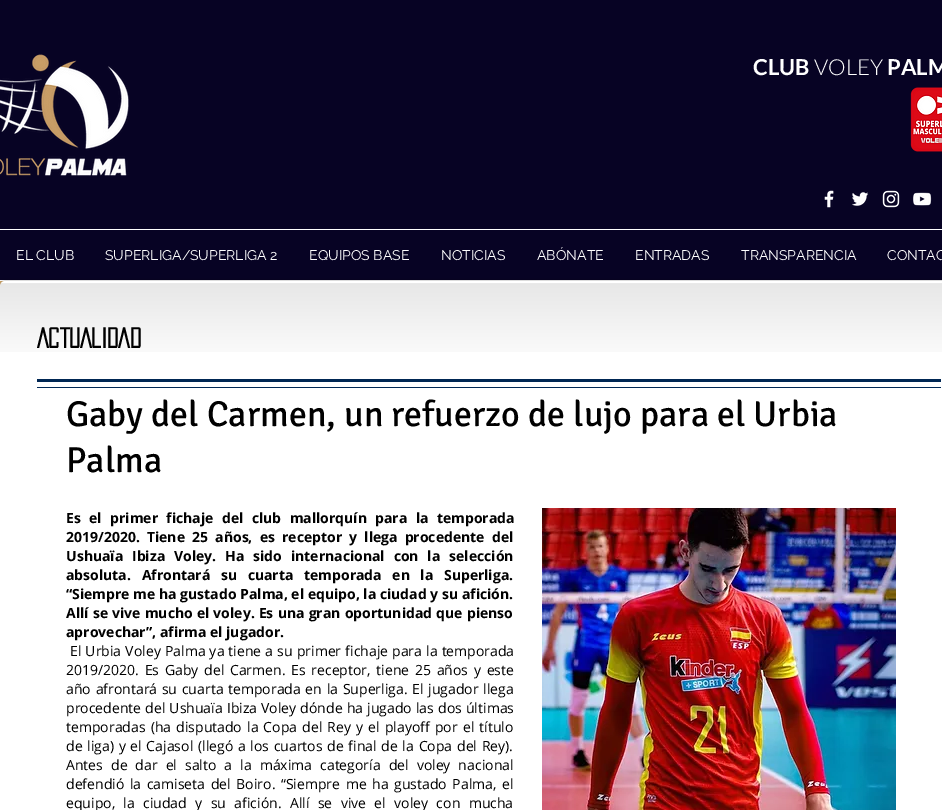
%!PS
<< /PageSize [942 810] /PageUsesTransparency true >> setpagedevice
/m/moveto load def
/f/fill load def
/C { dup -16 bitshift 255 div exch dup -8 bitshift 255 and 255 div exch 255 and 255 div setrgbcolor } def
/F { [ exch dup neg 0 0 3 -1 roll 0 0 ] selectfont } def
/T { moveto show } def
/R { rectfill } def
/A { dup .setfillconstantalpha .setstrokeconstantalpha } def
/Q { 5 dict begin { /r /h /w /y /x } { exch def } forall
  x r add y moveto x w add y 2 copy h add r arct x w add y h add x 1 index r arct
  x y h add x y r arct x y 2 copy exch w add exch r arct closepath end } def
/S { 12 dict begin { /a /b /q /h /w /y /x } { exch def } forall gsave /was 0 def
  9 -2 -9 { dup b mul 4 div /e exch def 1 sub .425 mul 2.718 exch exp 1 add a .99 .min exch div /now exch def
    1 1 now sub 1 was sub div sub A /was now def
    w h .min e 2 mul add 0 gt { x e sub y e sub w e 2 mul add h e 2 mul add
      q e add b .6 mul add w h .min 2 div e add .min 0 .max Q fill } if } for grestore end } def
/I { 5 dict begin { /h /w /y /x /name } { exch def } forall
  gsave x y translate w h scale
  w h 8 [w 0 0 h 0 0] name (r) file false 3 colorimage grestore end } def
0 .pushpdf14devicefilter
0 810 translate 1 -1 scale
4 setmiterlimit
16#D4AB6E C
0 0 942 810 R
16#070324 C
0 0 942 280 R
(1.rgb) 0 54 129 122 I
/Lato-Bold 22 F
16#FFFFFF C
(CLUB) 753 75 T
/Lato-Light 22 F
(VOLEY) 814 75 T
/Lato-Bold 22 F
(PALM) 887 75 T
(2.rgb) 910 87 32 65 I
(3.rgb) 824 190 10 18 I
(4.rgb) 852 192 17 14 I
(5.rgb) 882 190 18 18 I
(6.rgb) 913 192 19 14 I
0 229 942 1 R
0 280 942 1 R
/Raleway-Regular 14 F
(EL CLUB) 16 260 T
(SUPERLIGA/SUPERLIGA 2) 105 260 T
(EQUIPOS BASE) 309 260 T
(NOTICIAS) 441 260 T
(ABÓNATE) 537 260 T
(ENTRADAS) 635 260 T
(TRANSPARENCIA) 741 260 T
(CONTAC) 887 260 T
16#000000 C
0 282 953 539 5 2 .6 S
16#FFFFFF C
0 281 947 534 5 Q f
(7.rgb) 0 283 942 69 I
/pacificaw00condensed-Bold 25 F
16#000000 C
(ACTUALIDAD) 37 348 T
16#002754 C
37 379 904 3 R
37 387 904 1 R
/Signika-Regular 36 F
16#000000 C
(Gaby del Carmen, un refuerzo de lujo para el Urbia) 66 426 T
(Palma) 66 472 T
/OpenSans-Bold 14 F
66 523 m 4.75 0 32 (Es el primer fichaje del club mallorquín para la temporada) widthshow
66 542 m 3.5 0 32 (2019/2020. Tiene 25 años, es receptor y llega procedente del) widthshow
66 561 m 5.25 0 32 (Ushuaïa Ibiza Voley. Ha sido internacional con la selección) widthshow
66 580 m 7 0 32 (absoluta. Afrontará su cuarta temporada en la Superliga.) widthshow
(“Siempre me ha gustado Palma, el equipo, la ciudad y su afición.) 66 599 T
66 618 m .5 0 32 (Allí se vive mucho el voley. Es una gran oportunidad que pienso) widthshow
(aprovechar”, afirma el jugador.) 66 637 T
/OpenSans-Regular 14 F
70 656 m .5 0 32 (El Urbia Voley Palma ya tiene a su primer fichaje para la temporada) widthshow
66 675 m 2.1 0 32 (2019/2020. Es Gaby del Carmen. Es receptor, tiene 25 años y este) widthshow
66 694 m 1.1 0 32 (año afrontará su cuarta temporada en la Superliga. El jugador llega) widthshow
66 713 m .5 0 32 (procedente del Ushuaïa Ibiza Voley dónde ha jugado las dos últimas) widthshow
66 732 m 1.5 0 32 (temporadas \(ha disputado la Copa del Rey y el playoff por el título) widthshow
66 751 m 1.1 0 32 (de liga\) y el Cajasol \(llegó a los cuartos de final de la Copa del Rey\).) widthshow
66 770 m 4.4 0 32 (Antes de dar el salto a la máxima categoría del voley nacional) widthshow
66 789 m 2 0 32 (defendió la camiseta del Boiro. “Siempre me ha gustado Palma, el) widthshow
66 808 m 4.75 0 32 (equipo, la ciudad y su afición. Allí se vive el voley con mucha) widthshow
(8.rgb) 542 508 354 302 I
.poppdf14devicefilter showpage
